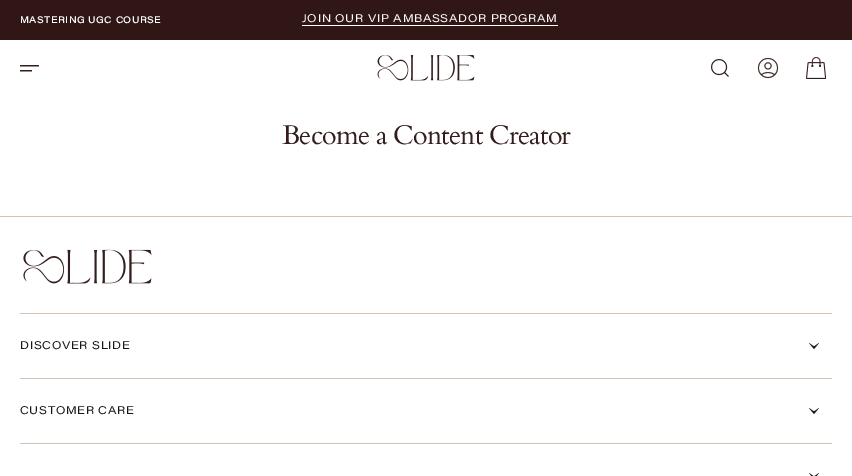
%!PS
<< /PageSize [852 476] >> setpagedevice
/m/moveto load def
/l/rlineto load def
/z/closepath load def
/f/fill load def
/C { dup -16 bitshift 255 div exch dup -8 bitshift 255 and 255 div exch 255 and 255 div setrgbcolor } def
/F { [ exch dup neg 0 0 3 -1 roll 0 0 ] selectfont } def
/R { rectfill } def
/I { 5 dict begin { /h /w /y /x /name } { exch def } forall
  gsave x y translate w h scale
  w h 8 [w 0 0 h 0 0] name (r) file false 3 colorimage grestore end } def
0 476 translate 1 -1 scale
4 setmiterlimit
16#FFFFFF C
0 0 852 476 R
16#301716 C
0 0 852 40 R
/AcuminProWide-Bold 9 F
16#FFFFFF C
20 23 m .65 0 (MASTERING UGC COURSE) ashow
/AcuminProWide-Regular 11 F
302 22 m .65 0 (JOIN OUR VIP AMBASSADOR PROGRAM) ashow
302 25 256 1 R
(1.rgb) 20 65 19 7 I
(2.rgb) 377 55 98 26 I
(3.rgb) 711 59 18 18 I
(4.rgb) 757 57 22 22 I
(5.rgb) 806 57 21 22 I
/Cardo-Regular 26.9 F
16#331E1D C
282 144 m -.8 0 (Become a Content Creator) ashow
16#D3C2B2 C
0 216 852 1 R
(6.rgb) 23 249 129 35 I
20 313 812 1 R
20 378 812 1 R
/AcuminProWide-Regular 11 F
16#171717 C
20 349 m .65 0 (DISCOVER SLIDE) ashow
814 349 m -5 -6 l 5 3.5 l 5 -3.5 l z f
16#D3C2B2 C
20 443 812 1 R
16#171717 C
20 414 m .65 0 (CUSTOMER CARE) ashow
814 414 m -5 -6 l 5 3.5 l 5 -3.5 l z f
814 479 m -5 -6 l 5 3.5 l 5 -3.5 l z f
showpage
